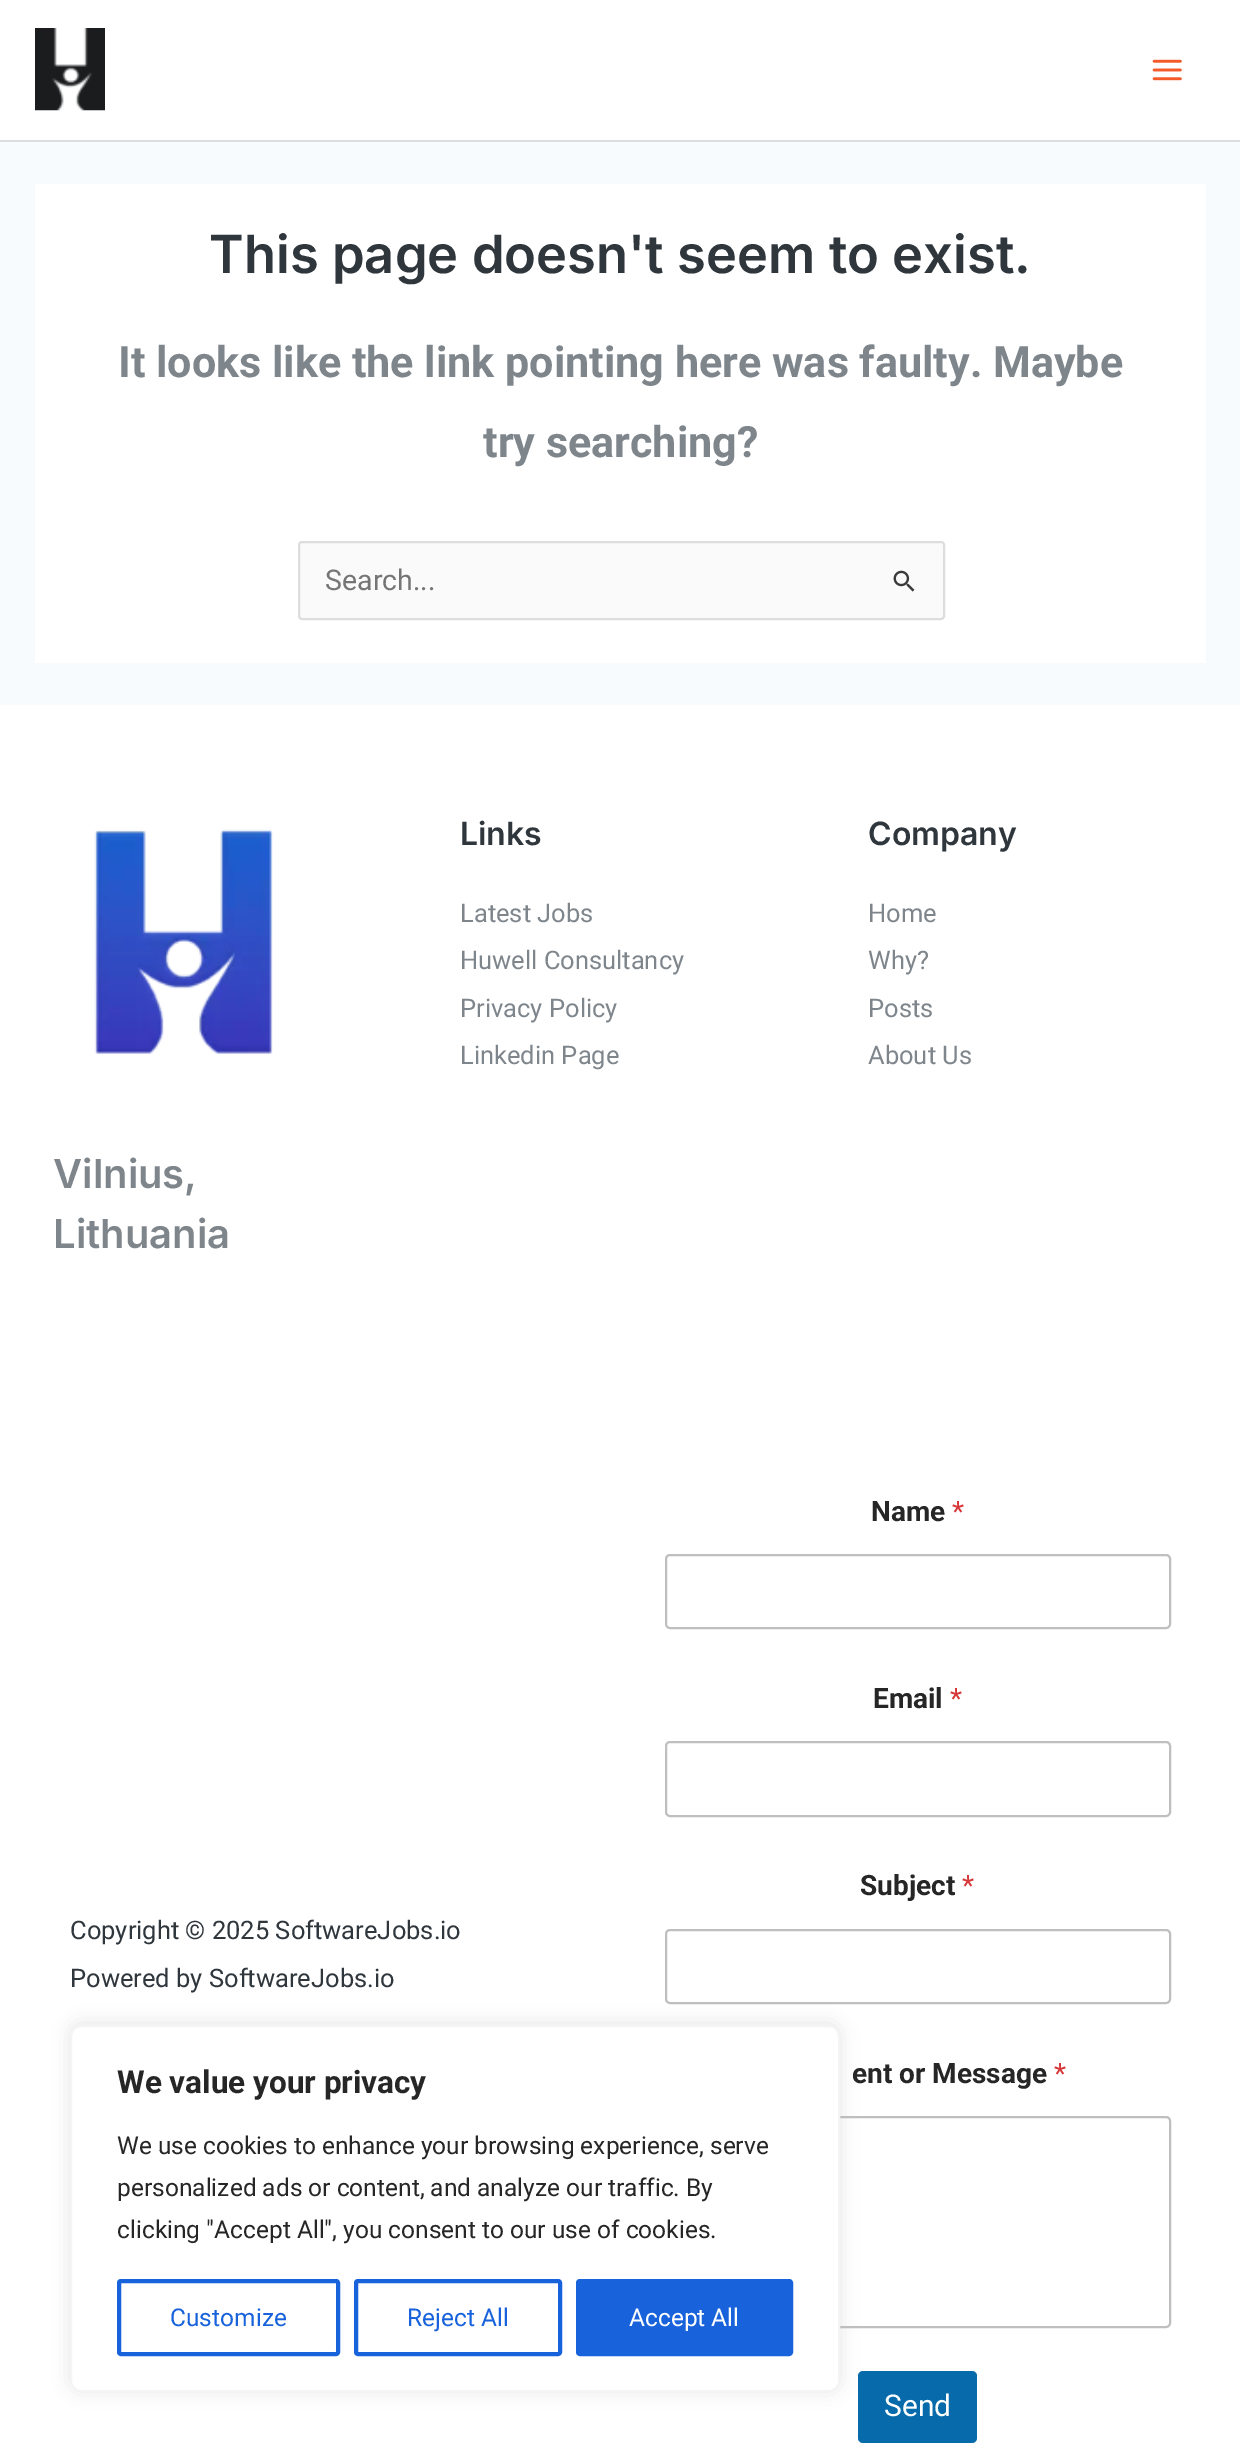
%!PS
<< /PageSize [1240 2461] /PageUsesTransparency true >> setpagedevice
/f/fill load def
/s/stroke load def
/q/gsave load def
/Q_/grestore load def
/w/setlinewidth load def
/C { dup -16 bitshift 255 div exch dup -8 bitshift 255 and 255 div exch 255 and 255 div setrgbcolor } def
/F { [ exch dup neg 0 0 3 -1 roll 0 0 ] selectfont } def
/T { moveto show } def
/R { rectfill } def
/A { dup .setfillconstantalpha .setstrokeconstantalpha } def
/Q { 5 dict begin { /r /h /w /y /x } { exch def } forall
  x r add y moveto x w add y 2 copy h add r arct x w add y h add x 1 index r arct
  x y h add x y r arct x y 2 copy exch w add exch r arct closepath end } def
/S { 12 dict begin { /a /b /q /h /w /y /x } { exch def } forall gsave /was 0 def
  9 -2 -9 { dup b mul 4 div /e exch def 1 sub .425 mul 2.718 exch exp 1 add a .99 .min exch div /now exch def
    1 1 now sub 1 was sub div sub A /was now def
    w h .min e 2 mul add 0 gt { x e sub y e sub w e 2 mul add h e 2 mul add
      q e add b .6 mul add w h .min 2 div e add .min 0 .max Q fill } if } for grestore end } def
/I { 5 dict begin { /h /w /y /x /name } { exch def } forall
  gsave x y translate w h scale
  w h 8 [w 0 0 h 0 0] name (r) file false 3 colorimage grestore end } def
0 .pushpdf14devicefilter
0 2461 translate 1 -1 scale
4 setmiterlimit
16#F8FBFE C
0 0 1240 2461 R
16#FFFFFF C
0 0 1240 140 R
16#DDDDDD C
0 140 1240 2 R
(1.rgb) 35 28 70 83 I
(2.rgb) 1152 59 30 22 I
16#FFFFFF C
35 184 1171 479 R
/Inter-SemiBold 52.5 F
16#2F373D C
(This page doesn't seem to exist.) 209 273 T
/Roboto-Bold 43.1 F
16#7E868C C
(It looks like the link pointing here was faulty. Maybe) 118 377 T
(try searching?) 483 457 T
16#FAFAFA C
299 542 645 77 3 Q q f Q_
16#DDDDDD C
2 w
s
/Roboto-Regular 28.5 F
16#757575 C
(Search...) 325 590 T
(3.rgb) 893 570 22 22 I
16#FFFFFF C
0 705 1240 1756 R
/Inter-SemiBold 32 F
16#2F373D C
(Links) 460 845 T
/Roboto-Regular 25.5 F
16#7E868C C
(Latest Jobs) 460 922 T
(Huwell Consultancy) 460 969 T
(Privacy Policy) 460 1017 T
(Linkedin Page) 460 1064 T
/Inter-SemiBold 32 F
16#2F373D C
(Company) 868 845 T
/Roboto-Regular 25.5 F
16#7E868C C
(Home) 868 922 T
(Why?) 868 969 T
(Posts) 868 1017 T
(About Us) 868 1064 T
(4.rgb) 94 829 179 225 I
/Inter-SemiBold 40 F
(Vilnius,) 53 1188 T
(Lithuania) 53 1248 T
/Roboto-Regular 25.5 F
16#2F373D C
(Copyright © 2025 SoftwareJobs.io) 70 1939 T
(Powered by SoftwareJobs.io) 70 1987 T
/Roboto-Bold 28 F
16#262626 C
(Name) 871 1521 T
/Roboto-Regular 28 F
16#D63637 C
(*) 952 1521 T
16#BFBFBF C
666 1555 504 73 4 Q s
/Roboto-Bold 28 F
16#262626 C
(Email) 873 1708 T
/Roboto-Regular 28 F
16#D63637 C
(*) 950 1708 T
16#BFBFBF C
666 1742 504 74 4 Q s
/Roboto-Bold 28 F
16#262626 C
(Subject) 860 1895 T
/Roboto-Regular 28 F
16#D63637 C
(*) 962 1895 T
16#BFBFBF C
666 1930 504 73 4 Q s
/Roboto-Bold 28 F
16#262626 C
(ent or Message) 852 2083 T
/Roboto-Regular 28 F
16#D63637 C
(*) 1054 2083 T
16#BFBFBF C
666 2117 504 210 4 Q s
16#066AAB C
858 2371 119 72 5 Q f
/Roboto-Regular 30 F
16#FFFFFF C
(Send) 884 2416 T
16#ACABAB C
70 2023 770 368 11 9 .3 S
16#FFFFFF C
71 2026 768 365 10 Q q f Q_
16#F4F4F4 C
s
/Roboto-Bold 31.5 F
16#262626 C
(We value your privacy) 117 2093 T
/Roboto-Regular 24.5 F
(We use cookies to enhance your browsing experience, serve) 117 2154 T
(personalized ads or content, and analyze our traffic. By) 117 2196 T
(clicking "Accept All", you consent to our use of cookies.) 117 2238 T
16#1863DC C
4 w
119 2281 219 73 2 Q s
(Customize) 170 2326 T
356 2281 204 73 2 Q s
(Reject All) 407 2326 T
578 2281 213 73 2 Q q f Q_
s
16#FFFFFF C
(Accept All) 629 2326 T
.poppdf14devicefilter showpage
